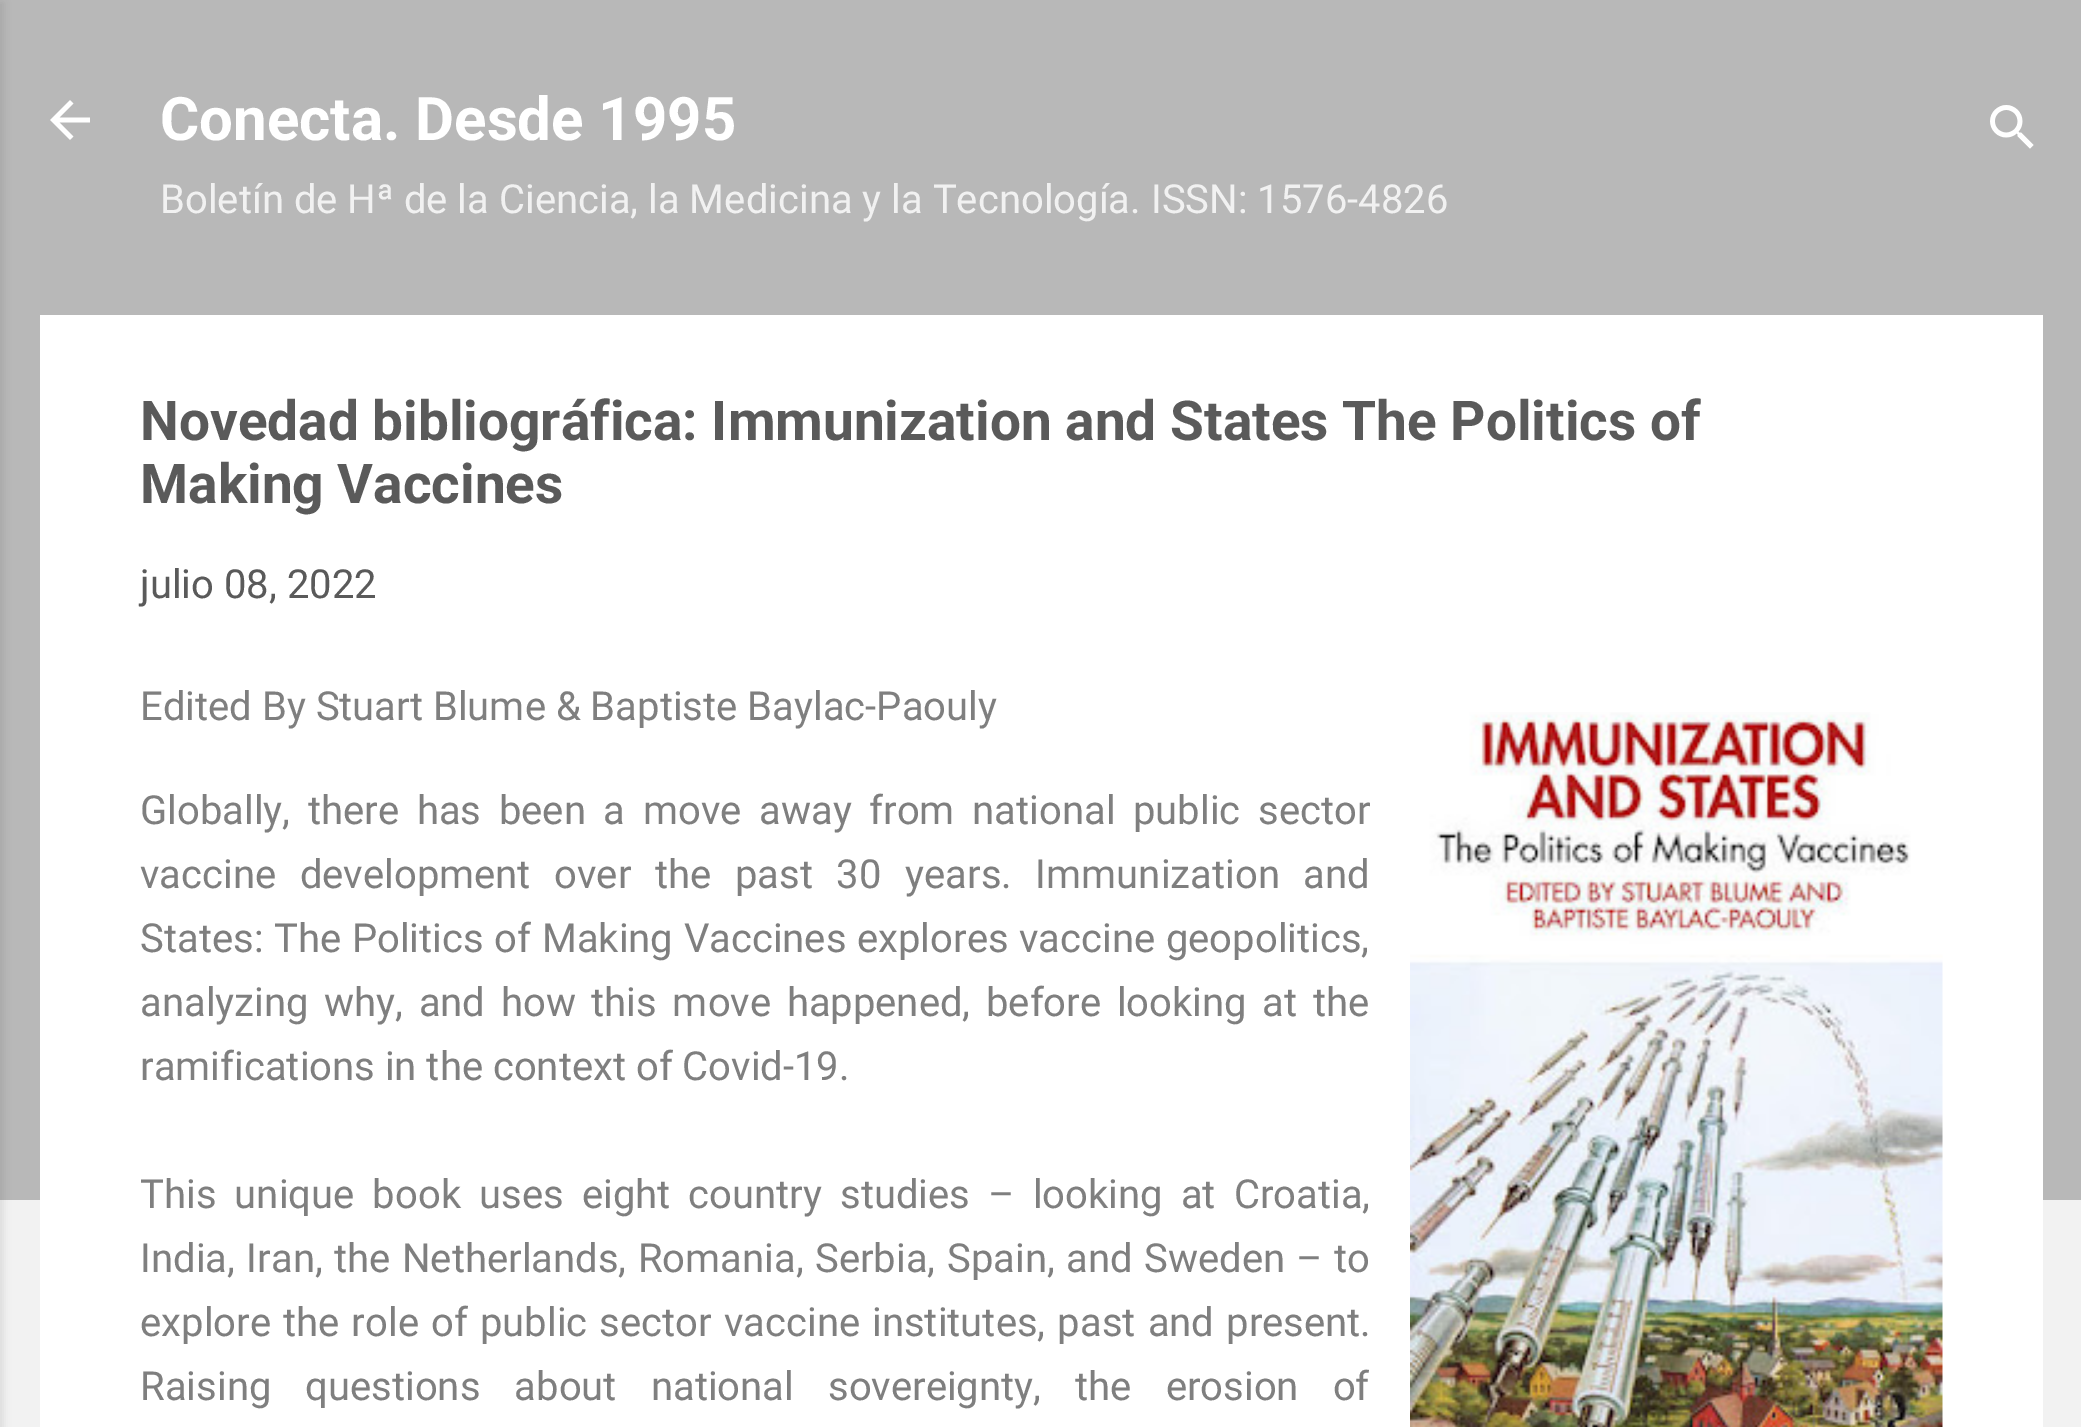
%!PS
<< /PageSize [2081 1427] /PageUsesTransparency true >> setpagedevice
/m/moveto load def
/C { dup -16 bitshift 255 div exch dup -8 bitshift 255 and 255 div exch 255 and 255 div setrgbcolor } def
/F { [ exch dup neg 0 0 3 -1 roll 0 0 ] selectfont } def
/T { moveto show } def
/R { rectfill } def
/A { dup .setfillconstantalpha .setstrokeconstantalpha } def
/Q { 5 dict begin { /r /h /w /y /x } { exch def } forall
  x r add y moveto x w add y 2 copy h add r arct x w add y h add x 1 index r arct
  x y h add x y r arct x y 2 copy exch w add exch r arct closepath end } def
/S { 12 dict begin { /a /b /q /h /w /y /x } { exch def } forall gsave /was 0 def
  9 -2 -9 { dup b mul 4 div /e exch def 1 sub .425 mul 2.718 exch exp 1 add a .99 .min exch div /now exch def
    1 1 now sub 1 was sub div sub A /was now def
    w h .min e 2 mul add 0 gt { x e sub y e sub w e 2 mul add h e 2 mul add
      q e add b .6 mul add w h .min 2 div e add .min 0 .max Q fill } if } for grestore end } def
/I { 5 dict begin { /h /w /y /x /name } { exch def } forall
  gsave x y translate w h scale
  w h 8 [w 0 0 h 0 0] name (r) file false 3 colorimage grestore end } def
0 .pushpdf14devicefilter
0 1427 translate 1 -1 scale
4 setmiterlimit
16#F2F2F2 C
0 0 2081 1427 R
16#B8B8B8 C
0 0 2081 1200 R
16#000000 C
-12 3 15 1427 0 4 .1 S
(1.rgb) 50 100 40 40 I
/Roboto-Bold 60 F
16#FFFFFF C
(Conecta. Desde 1995) 160 140 T
/Roboto-Regular 40 F
16#F1F1F1 C
(Boletín de Hª de la Ciencia, la Medicina y la Tecnología. ISSN: 1576-4826) 160 213 T
(2.rgb) 1990 105 44 44 I
16#FFFFFF C
40 315 2003 1112 R
/Roboto-Bold 55 F
16#5A5A5A C
(Novedad bibliográfica: Immunization and States The Politics of) 140 440 T
(Making Vaccines) 140 503 T
/Roboto-Regular 40 F
(julio 08, 2022) 140 598 T
16#7F7F7F C
(Edited By Stuart Blume & Baptiste Baylac-Paouly) 140 720 T
(3.rgb) 1410 712 533 715 I
140 824 m 7.75 0 32 (Globally, there has been a move) widthshow
759 824 m 7.75 0 32 (away from national public sector) widthshow
140 888 m 13.75 0 32 (vaccine development over the past 30 years. Immunization and) widthshow
140 952 m .75 0 32 (States: The Politics of Making Vaccines explores vaccine geopolitics,) widthshow
140 1016 m 5.75 0 32 (analyzing why, and how this move happened, before looking at the) widthshow
(ramifications in the context of Covid-19.) 140 1080 T
140 1208 m 8.25 0 32 (This unique book uses eight country studies – looking at Croatia,) widthshow
140 1272 m 1.6 0 32 (India, Iran, the Netherlands, Romania, Serbia, Spain, and Sweden – to) widthshow
140 1336 m 2.25 0 32 (explore the role of public sector vaccine institutes, past and present.) widthshow
140 1400 m 24.25 0 32 (Raising questions about national sovereignty, the erosion of) widthshow
.poppdf14devicefilter showpage
